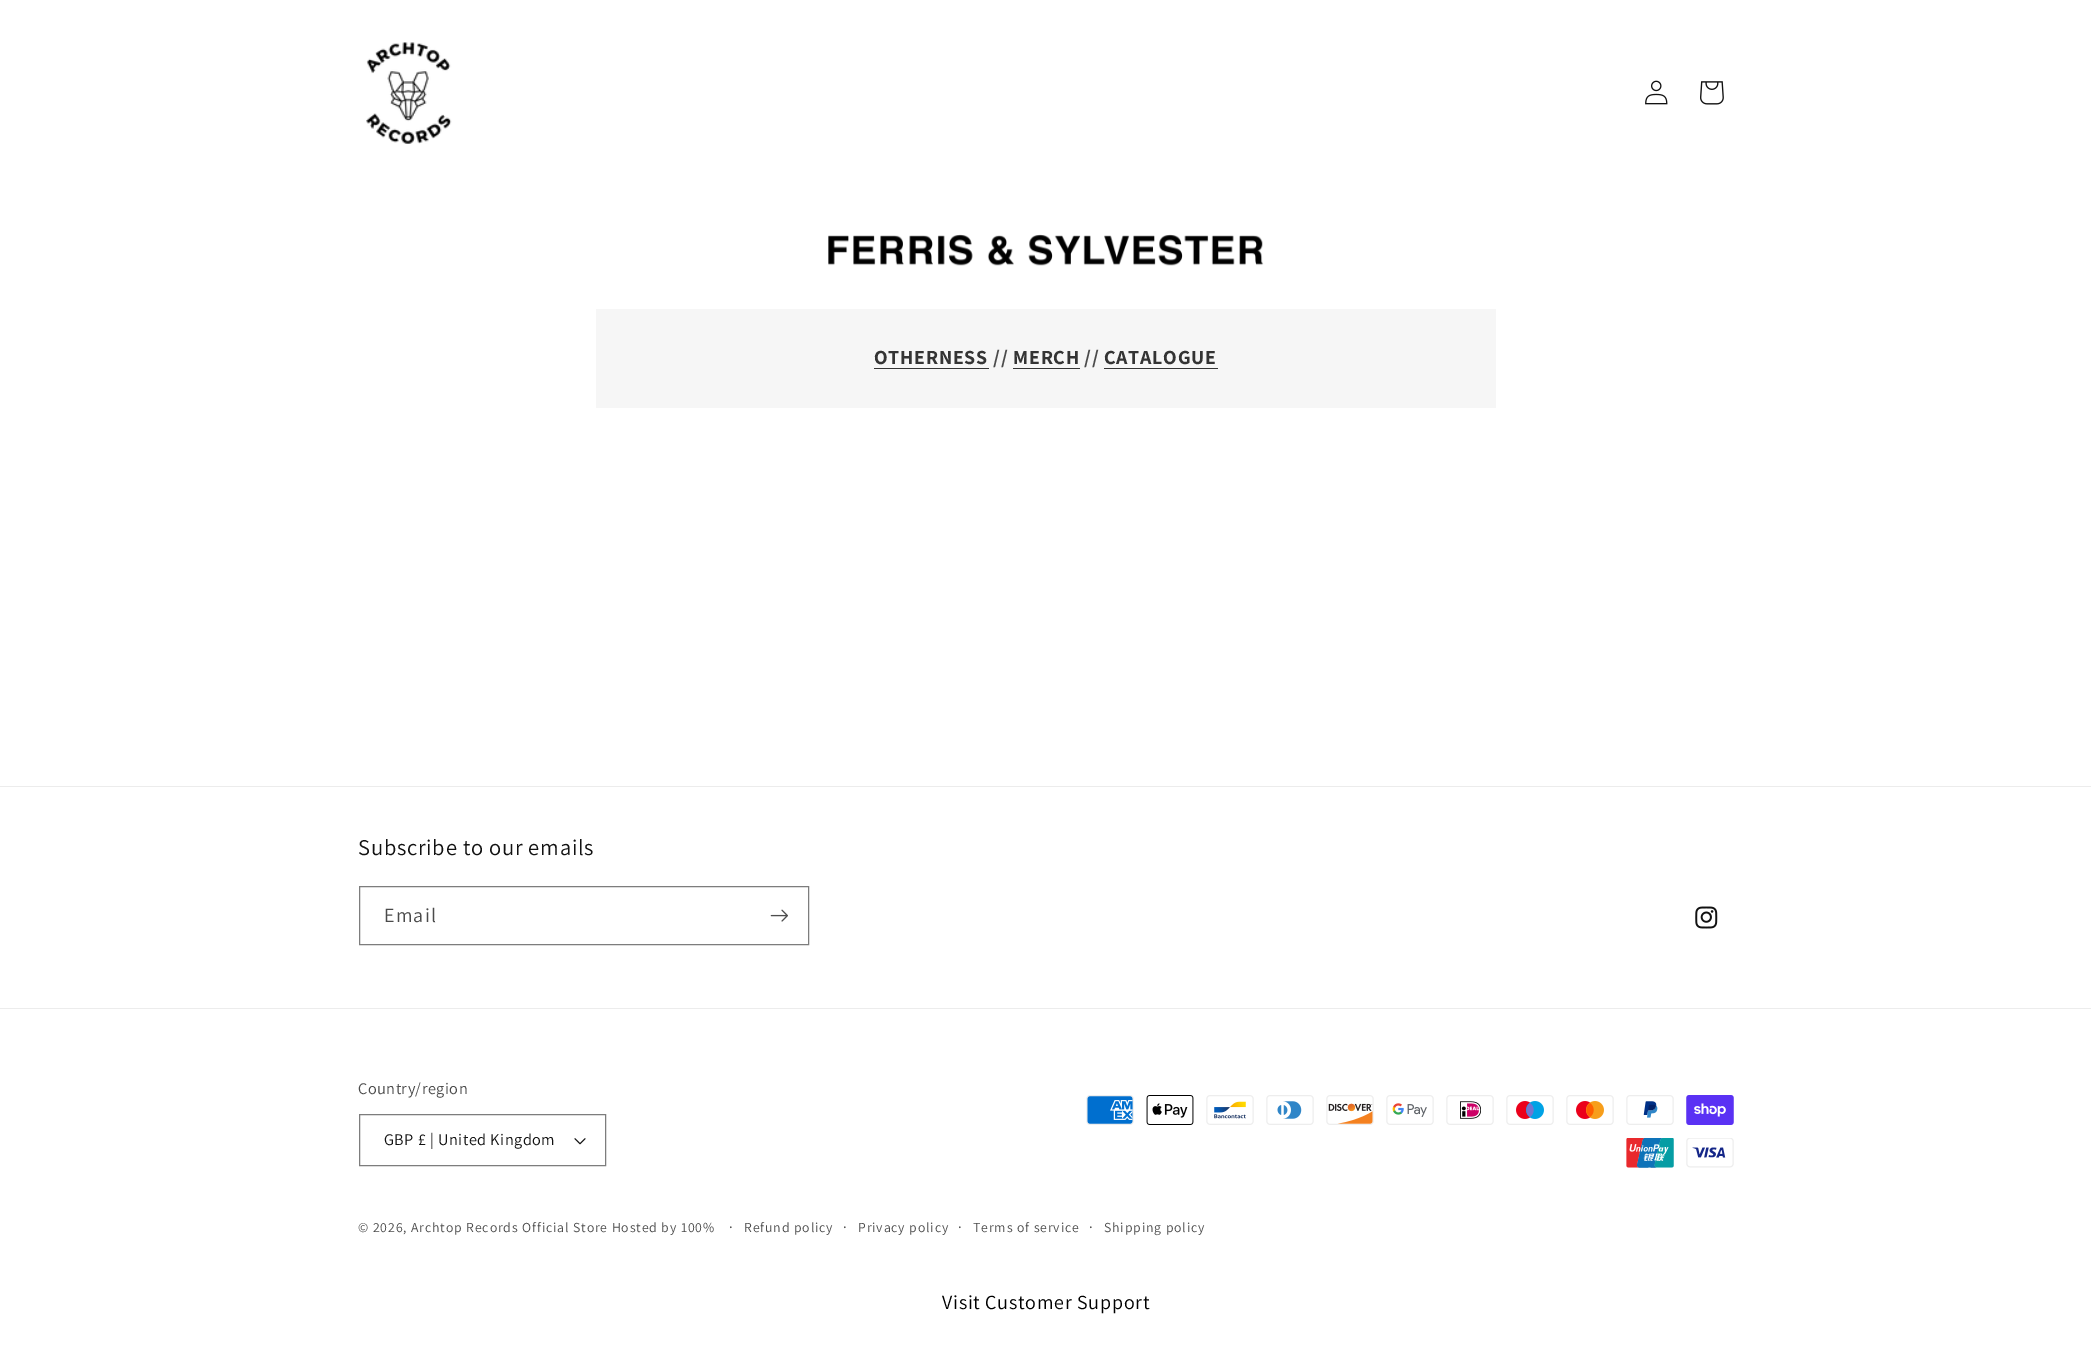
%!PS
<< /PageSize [2091 1371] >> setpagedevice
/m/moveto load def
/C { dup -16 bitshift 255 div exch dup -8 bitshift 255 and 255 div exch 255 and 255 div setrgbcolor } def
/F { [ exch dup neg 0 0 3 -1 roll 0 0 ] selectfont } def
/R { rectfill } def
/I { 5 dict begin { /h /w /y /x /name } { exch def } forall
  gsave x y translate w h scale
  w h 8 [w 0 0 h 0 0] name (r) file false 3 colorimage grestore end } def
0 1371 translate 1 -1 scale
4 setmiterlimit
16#FFFFFF C
0 0 2091 1371 R
(1.rgb) 366 42 86 102 I
(2.rgb) 1645 80 23 25 I
(3.rgb) 1700 81 24 24 I
(4.rgb) 828 234 436 32 I
16#F6F6F6 C
596 309 900 99 R
/Assistant-Bold 20 F
16#343434 C
874 364 m .75 0 (OTHERNESS) ashow
874 368 115 1 R
16#4B4B4B C
993 364 m .75 0 (//) ashow
16#343434 C
1013 364 m .75 0 (MERCH) ashow
1013 368 67 1 R
16#4B4B4B C
1084 364 m .75 0 (//) ashow
16#343434 C
1104 364 m .75 0 (CATALOGUE) ashow
1104 368 114 1 R
16#ECECEC C
0 786 2091 1 R
/Assistant-Regular 22.5 F
16#121212 C
358 855 m .75 0 (Subscribe to our emails) ashow
16#7D7D7D C
359.5 886.5 449 58 rectstroke
/Assistant-Regular 20 F
16#4B4B4B C
384 922 m 1.25 0 (Email) ashow
(5.rgb) 770 909 18 13 I
(6.rgb) 1695 906 23 23 I
16#ECECEC C
0 1008 2091 1 R
/Assistant-Regular 16.25 F
16#4B4B4B C
358 1094 m .5 0 (Country/region) ashow
(7.rgb) 574 1138 12 7 I
16#7D7D7D C
359.5 1114.5 246 51 rectstroke
16#121212 C
384 1145 m .5 0 (GBP £ | United Kingdom) ashow
(8.rgb) 1086 1095 48 30 I
(9.rgb) 1146 1095 48 30 I
(10.rgb) 1206 1095 48 30 I
(11.rgb) 1266 1095 48 30 I
(12.rgb) 1326 1095 48 30 I
(13.rgb) 1386 1095 48 30 I
(14.rgb) 1446 1095 48 30 I
(15.rgb) 1506 1095 48 30 I
(16.rgb) 1566 1095 48 30 I
(17.rgb) 1626 1095 48 30 I
(18.rgb) 1686 1095 48 30 I
(19.rgb) 1626 1138 48 30 I
(20.rgb) 1686 1138 48 30 I
/Assistant-Regular 13.75 F
16#4B4B4B C
358 1232 m .88 0 (© 2026, Archtop Records Official Store Hosted by 100%) ashow
/Assistant-Regular 15 F
729 1232 m .88 0 (·) ashow
/Assistant-Regular 13.75 F
744 1232 m .88 0 (Refund policy) ashow
/Assistant-Regular 15 F
843 1232 m .88 0 (·) ashow
/Assistant-Regular 13.75 F
858 1232 m .88 0 (Privacy policy) ashow
/Assistant-Regular 15 F
958 1232 m .88 0 (·) ashow
/Assistant-Regular 13.75 F
973 1232 m .88 0 (Terms of service) ashow
/Assistant-Regular 15 F
1089 1232 m .88 0 (·) ashow
/Assistant-Regular 13.75 F
1104 1232 m .88 0 (Shipping policy) ashow
/Assistant-Regular 20 F
16#000000 C
942 1309 m .75 0 (Visit Customer Support) ashow
showpage
